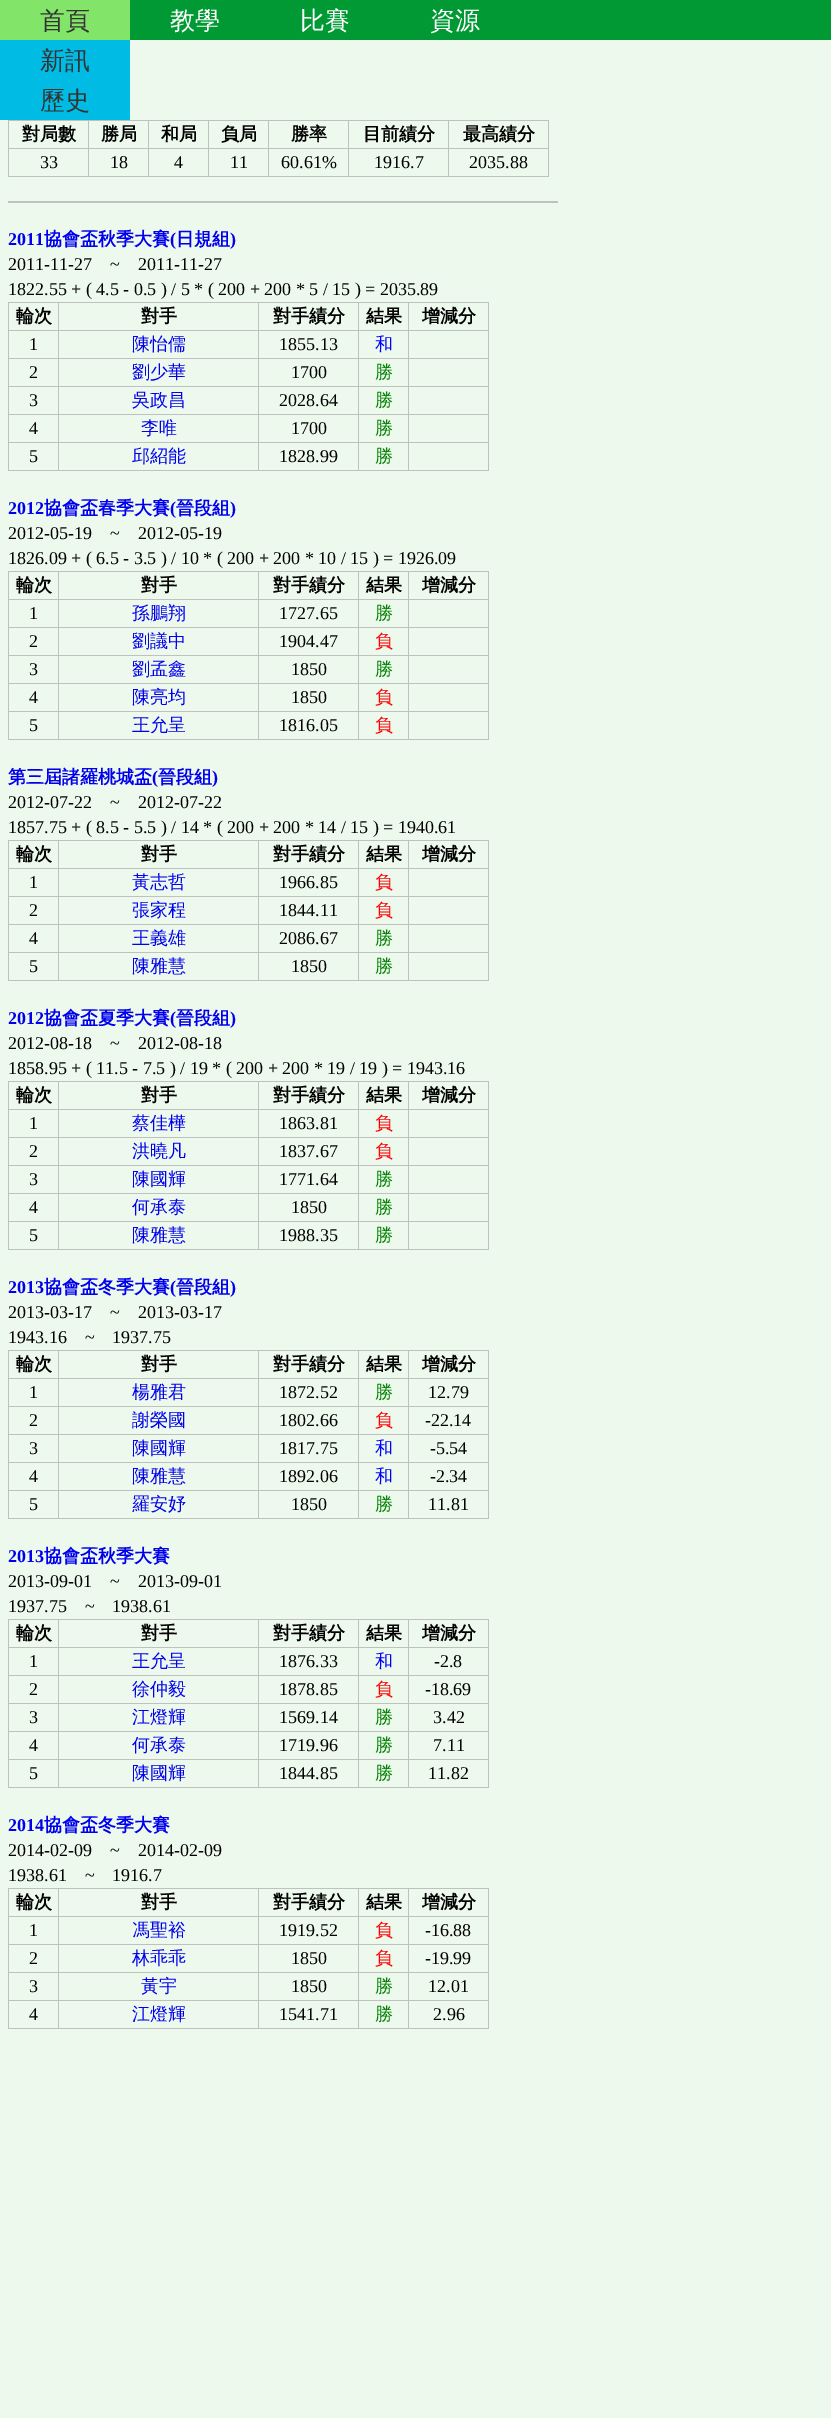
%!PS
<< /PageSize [831 2418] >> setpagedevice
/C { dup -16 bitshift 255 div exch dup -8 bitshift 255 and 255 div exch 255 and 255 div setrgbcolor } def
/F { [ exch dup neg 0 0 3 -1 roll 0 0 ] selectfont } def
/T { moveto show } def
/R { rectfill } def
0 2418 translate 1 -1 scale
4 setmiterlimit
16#EDF9EC C
0 0 831 2418 R
16#009933 C
130 0 701 40 R
16#83E46A C
0 0 130 40 R
/WenQuanYiZenHei-Medium 25 F
16#333333 C
(首頁) 40 29 T
16#00BCE4 C
0 40 130 80 R
16#333333 C
(新訊) 40 69 T
(歷史) 40 109 T
16#FFFFFF C
(教學) 170 29 T
(比賽) 300 29 T
(資源) 430 29 T
16#C0C0C0 C
8 120 541 1 R
548 120 1 57 R
8 176 541 1 R
8 120 1 57 R
/WenQuanYiZenHei-Bold 18 F
16#000000 C
(對局數) 22 140 T
16#C0C0C0 C
448 148 101 1 R
448 148 1 29 R
348 148 101 1 R
348 148 1 29 R
268 148 81 1 R
268 148 1 29 R
208 148 61 1 R
208 148 1 29 R
148 148 61 1 R
148 148 1 29 R
88 148 61 1 R
88 148 1 29 R
8 148 81 1 R
88 120 1 29 R
16#000000 C
(勝局) 101 140 T
16#C0C0C0 C
148 120 1 29 R
16#000000 C
(和局) 161 140 T
16#C0C0C0 C
208 120 1 29 R
16#000000 C
(負局) 221 140 T
16#C0C0C0 C
268 120 1 29 R
16#000000 C
(勝率) 291 140 T
16#C0C0C0 C
348 120 1 29 R
16#000000 C
(目前績分) 363 140 T
16#C0C0C0 C
448 120 1 29 R
16#000000 C
(最高績分) 463 140 T
/LiberationSerif-Regular 18 F
(33) 40 168 T
(18) 110 168 T
(4) 174 168 T
(11) 230 168 T
(60.61%) 281 168 T
(1916.7) 374 168 T
(2035.88) 469 168 T
16#C0C0C0 C
8 201 550 2 R
/LiberationSerif-Bold 18 F
16#0000EE C
(2011) 8 245 T
/WenQuanYiZenHei-Bold 18 F
(協會盃秋季大賽) 44 245 T
/LiberationSerif-Bold 18 F
(\() 170 245 T
/WenQuanYiZenHei-Bold 18 F
(日規組) 176 245 T
/LiberationSerif-Bold 18 F
(\)) 230 245 T
/LiberationSerif-Regular 18 F
16#000000 C
(2011-11-27) 8 270 T
(~) 110 270 T
(2011-11-27) 138 270 T
(1822.55 + \( 4.5 - 0.5 \) / 5 * \( 200 + 200 * 5 / 15 \) = 2035.89) 8 295 T
16#C0C0C0 C
8 302 481 1 R
488 302 1 169 R
8 470 481 1 R
8 302 1 169 R
/WenQuanYiZenHei-Bold 18 F
16#000000 C
(輪次) 16 322 T
16#C0C0C0 C
408 330 81 1 R
408 358 81 1 R
408 386 81 1 R
408 414 81 1 R
408 442 81 1 R
408 442 1 29 R
358 442 51 1 R
408 414 1 29 R
358 414 51 1 R
408 386 1 29 R
358 386 51 1 R
408 358 1 29 R
358 358 51 1 R
408 330 1 29 R
358 330 51 1 R
358 442 1 29 R
258 442 101 1 R
358 414 1 29 R
258 414 101 1 R
358 386 1 29 R
258 386 101 1 R
358 358 1 29 R
258 358 101 1 R
358 330 1 29 R
258 330 101 1 R
258 442 1 29 R
58 442 201 1 R
258 414 1 29 R
58 414 201 1 R
258 386 1 29 R
58 386 201 1 R
258 358 1 29 R
58 358 201 1 R
258 330 1 29 R
58 330 201 1 R
58 442 1 29 R
8 442 51 1 R
58 414 1 29 R
8 414 51 1 R
58 386 1 29 R
8 386 51 1 R
58 358 1 29 R
8 358 51 1 R
58 330 1 29 R
8 330 51 1 R
58 302 1 29 R
16#000000 C
(對手) 141 322 T
16#C0C0C0 C
258 302 1 29 R
16#000000 C
(對手績分) 273 322 T
16#C0C0C0 C
358 302 1 29 R
16#000000 C
(結果) 366 322 T
16#C0C0C0 C
408 302 1 29 R
16#000000 C
(增減分) 422 322 T
/LiberationSerif-Regular 18 F
(1) 29 350 T
/WenQuanYiZenHei-Medium 18 F
16#0000EE C
(陳怡儒) 132 350 T
/LiberationSerif-Regular 18 F
16#000000 C
(1855.13) 279 350 T
/WenQuanYiZenHei-Medium 18 F
16#0000FF C
(和) 375 350 T
/LiberationSerif-Regular 18 F
16#000000 C
(2) 29 378 T
/WenQuanYiZenHei-Medium 18 F
16#0000EE C
(劉少華) 132 378 T
/LiberationSerif-Regular 18 F
16#000000 C
(1700) 291 378 T
/WenQuanYiZenHei-Medium 18 F
16#008000 C
(勝) 375 378 T
/LiberationSerif-Regular 18 F
16#000000 C
(3) 29 406 T
/WenQuanYiZenHei-Medium 18 F
16#0000EE C
(吳政昌) 132 406 T
/LiberationSerif-Regular 18 F
16#000000 C
(2028.64) 279 406 T
/WenQuanYiZenHei-Medium 18 F
16#008000 C
(勝) 375 406 T
/LiberationSerif-Regular 18 F
16#000000 C
(4) 29 434 T
/WenQuanYiZenHei-Medium 18 F
16#0000EE C
(李唯) 141 434 T
/LiberationSerif-Regular 18 F
16#000000 C
(1700) 291 434 T
/WenQuanYiZenHei-Medium 18 F
16#008000 C
(勝) 375 434 T
/LiberationSerif-Regular 18 F
16#000000 C
(5) 29 462 T
/WenQuanYiZenHei-Medium 18 F
16#0000EE C
(邱紹能) 132 462 T
/LiberationSerif-Regular 18 F
16#000000 C
(1828.99) 279 462 T
/WenQuanYiZenHei-Medium 18 F
16#008000 C
(勝) 375 462 T
/LiberationSerif-Bold 18 F
16#0000EE C
(2012) 8 514 T
/WenQuanYiZenHei-Bold 18 F
(協會盃春季大賽) 44 514 T
/LiberationSerif-Bold 18 F
(\() 170 514 T
/WenQuanYiZenHei-Bold 18 F
(晉段組) 176 514 T
/LiberationSerif-Bold 18 F
(\)) 230 514 T
/LiberationSerif-Regular 18 F
16#000000 C
(2012-05-19) 8 539 T
(~) 110 539 T
(2012-05-19) 138 539 T
(1826.09 + \( 6.5 - 3.5 \) / 10 * \( 200 + 200 * 10 / 15 \) = 1926.09) 8 564 T
16#C0C0C0 C
8 571 481 1 R
488 571 1 169 R
8 739 481 1 R
8 571 1 169 R
/WenQuanYiZenHei-Bold 18 F
16#000000 C
(輪次) 16 591 T
16#C0C0C0 C
408 599 81 1 R
408 627 81 1 R
408 655 81 1 R
408 683 81 1 R
408 711 81 1 R
408 711 1 29 R
358 711 51 1 R
408 683 1 29 R
358 683 51 1 R
408 655 1 29 R
358 655 51 1 R
408 627 1 29 R
358 627 51 1 R
408 599 1 29 R
358 599 51 1 R
358 711 1 29 R
258 711 101 1 R
358 683 1 29 R
258 683 101 1 R
358 655 1 29 R
258 655 101 1 R
358 627 1 29 R
258 627 101 1 R
358 599 1 29 R
258 599 101 1 R
258 711 1 29 R
58 711 201 1 R
258 683 1 29 R
58 683 201 1 R
258 655 1 29 R
58 655 201 1 R
258 627 1 29 R
58 627 201 1 R
258 599 1 29 R
58 599 201 1 R
58 711 1 29 R
8 711 51 1 R
58 683 1 29 R
8 683 51 1 R
58 655 1 29 R
8 655 51 1 R
58 627 1 29 R
8 627 51 1 R
58 599 1 29 R
8 599 51 1 R
58 571 1 29 R
16#000000 C
(對手) 141 591 T
16#C0C0C0 C
258 571 1 29 R
16#000000 C
(對手績分) 273 591 T
16#C0C0C0 C
358 571 1 29 R
16#000000 C
(結果) 366 591 T
16#C0C0C0 C
408 571 1 29 R
16#000000 C
(增減分) 422 591 T
/LiberationSerif-Regular 18 F
(1) 29 619 T
/WenQuanYiZenHei-Medium 18 F
16#0000EE C
(孫鵬翔) 132 619 T
/LiberationSerif-Regular 18 F
16#000000 C
(1727.65) 279 619 T
/WenQuanYiZenHei-Medium 18 F
16#008000 C
(勝) 375 619 T
/LiberationSerif-Regular 18 F
16#000000 C
(2) 29 647 T
/WenQuanYiZenHei-Medium 18 F
16#0000EE C
(劉議中) 132 647 T
/LiberationSerif-Regular 18 F
16#000000 C
(1904.47) 279 647 T
/WenQuanYiZenHei-Medium 18 F
16#FF0000 C
(負) 375 647 T
/LiberationSerif-Regular 18 F
16#000000 C
(3) 29 675 T
/WenQuanYiZenHei-Medium 18 F
16#0000EE C
(劉孟鑫) 132 675 T
/LiberationSerif-Regular 18 F
16#000000 C
(1850) 291 675 T
/WenQuanYiZenHei-Medium 18 F
16#008000 C
(勝) 375 675 T
/LiberationSerif-Regular 18 F
16#000000 C
(4) 29 703 T
/WenQuanYiZenHei-Medium 18 F
16#0000EE C
(陳亮均) 132 703 T
/LiberationSerif-Regular 18 F
16#000000 C
(1850) 291 703 T
/WenQuanYiZenHei-Medium 18 F
16#FF0000 C
(負) 375 703 T
/LiberationSerif-Regular 18 F
16#000000 C
(5) 29 731 T
/WenQuanYiZenHei-Medium 18 F
16#0000EE C
(王允呈) 132 731 T
/LiberationSerif-Regular 18 F
16#000000 C
(1816.05) 279 731 T
/WenQuanYiZenHei-Medium 18 F
16#FF0000 C
(負) 375 731 T
/WenQuanYiZenHei-Bold 18 F
16#0000EE C
(第三屆諸羅桃城盃) 8 783 T
/LiberationSerif-Bold 18 F
(\() 152 783 T
/WenQuanYiZenHei-Bold 18 F
(晉段組) 158 783 T
/LiberationSerif-Bold 18 F
(\)) 212 783 T
/LiberationSerif-Regular 18 F
16#000000 C
(2012-07-22) 8 808 T
(~) 110 808 T
(2012-07-22) 138 808 T
(1857.75 + \( 8.5 - 5.5 \) / 14 * \( 200 + 200 * 14 / 15 \) = 1940.61) 8 833 T
16#C0C0C0 C
8 840 481 1 R
488 840 1 141 R
8 980 481 1 R
8 840 1 141 R
/WenQuanYiZenHei-Bold 18 F
16#000000 C
(輪次) 16 860 T
16#C0C0C0 C
408 868 81 1 R
408 896 81 1 R
408 924 81 1 R
408 952 81 1 R
408 952 1 29 R
358 952 51 1 R
408 924 1 29 R
358 924 51 1 R
408 896 1 29 R
358 896 51 1 R
408 868 1 29 R
358 868 51 1 R
358 952 1 29 R
258 952 101 1 R
358 924 1 29 R
258 924 101 1 R
358 896 1 29 R
258 896 101 1 R
358 868 1 29 R
258 868 101 1 R
258 952 1 29 R
58 952 201 1 R
258 924 1 29 R
58 924 201 1 R
258 896 1 29 R
58 896 201 1 R
258 868 1 29 R
58 868 201 1 R
58 952 1 29 R
8 952 51 1 R
58 924 1 29 R
8 924 51 1 R
58 896 1 29 R
8 896 51 1 R
58 868 1 29 R
8 868 51 1 R
58 840 1 29 R
16#000000 C
(對手) 141 860 T
16#C0C0C0 C
258 840 1 29 R
16#000000 C
(對手績分) 273 860 T
16#C0C0C0 C
358 840 1 29 R
16#000000 C
(結果) 366 860 T
16#C0C0C0 C
408 840 1 29 R
16#000000 C
(增減分) 422 860 T
/LiberationSerif-Regular 18 F
(1) 29 888 T
/WenQuanYiZenHei-Medium 18 F
16#0000EE C
(黃志哲) 132 888 T
/LiberationSerif-Regular 18 F
16#000000 C
(1966.85) 279 888 T
/WenQuanYiZenHei-Medium 18 F
16#FF0000 C
(負) 375 888 T
/LiberationSerif-Regular 18 F
16#000000 C
(2) 29 916 T
/WenQuanYiZenHei-Medium 18 F
16#0000EE C
(張家程) 132 916 T
/LiberationSerif-Regular 18 F
16#000000 C
(1844.11) 279 916 T
/WenQuanYiZenHei-Medium 18 F
16#FF0000 C
(負) 375 916 T
/LiberationSerif-Regular 18 F
16#000000 C
(4) 29 944 T
/WenQuanYiZenHei-Medium 18 F
16#0000EE C
(王義雄) 132 944 T
/LiberationSerif-Regular 18 F
16#000000 C
(2086.67) 279 944 T
/WenQuanYiZenHei-Medium 18 F
16#008000 C
(勝) 375 944 T
/LiberationSerif-Regular 18 F
16#000000 C
(5) 29 972 T
/WenQuanYiZenHei-Medium 18 F
16#0000EE C
(陳雅慧) 132 972 T
/LiberationSerif-Regular 18 F
16#000000 C
(1850) 291 972 T
/WenQuanYiZenHei-Medium 18 F
16#008000 C
(勝) 375 972 T
/LiberationSerif-Bold 18 F
16#0000EE C
(2012) 8 1024 T
/WenQuanYiZenHei-Bold 18 F
(協會盃夏季大賽) 44 1024 T
/LiberationSerif-Bold 18 F
(\() 170 1024 T
/WenQuanYiZenHei-Bold 18 F
(晉段組) 176 1024 T
/LiberationSerif-Bold 18 F
(\)) 230 1024 T
/LiberationSerif-Regular 18 F
16#000000 C
(2012-08-18) 8 1049 T
(~) 110 1049 T
(2012-08-18) 138 1049 T
(1858.95 + \( 11.5 - 7.5 \) / 19 * \( 200 + 200 * 19 / 19 \) = 1943.16) 8 1074 T
16#C0C0C0 C
8 1081 481 1 R
488 1081 1 169 R
8 1249 481 1 R
8 1081 1 169 R
/WenQuanYiZenHei-Bold 18 F
16#000000 C
(輪次) 16 1101 T
16#C0C0C0 C
408 1109 81 1 R
408 1137 81 1 R
408 1165 81 1 R
408 1193 81 1 R
408 1221 81 1 R
408 1221 1 29 R
358 1221 51 1 R
408 1193 1 29 R
358 1193 51 1 R
408 1165 1 29 R
358 1165 51 1 R
408 1137 1 29 R
358 1137 51 1 R
408 1109 1 29 R
358 1109 51 1 R
358 1221 1 29 R
258 1221 101 1 R
358 1193 1 29 R
258 1193 101 1 R
358 1165 1 29 R
258 1165 101 1 R
358 1137 1 29 R
258 1137 101 1 R
358 1109 1 29 R
258 1109 101 1 R
258 1221 1 29 R
58 1221 201 1 R
258 1193 1 29 R
58 1193 201 1 R
258 1165 1 29 R
58 1165 201 1 R
258 1137 1 29 R
58 1137 201 1 R
258 1109 1 29 R
58 1109 201 1 R
58 1221 1 29 R
8 1221 51 1 R
58 1193 1 29 R
8 1193 51 1 R
58 1165 1 29 R
8 1165 51 1 R
58 1137 1 29 R
8 1137 51 1 R
58 1109 1 29 R
8 1109 51 1 R
58 1081 1 29 R
16#000000 C
(對手) 141 1101 T
16#C0C0C0 C
258 1081 1 29 R
16#000000 C
(對手績分) 273 1101 T
16#C0C0C0 C
358 1081 1 29 R
16#000000 C
(結果) 366 1101 T
16#C0C0C0 C
408 1081 1 29 R
16#000000 C
(增減分) 422 1101 T
/LiberationSerif-Regular 18 F
(1) 29 1129 T
/WenQuanYiZenHei-Medium 18 F
16#0000EE C
(蔡佳樺) 132 1129 T
/LiberationSerif-Regular 18 F
16#000000 C
(1863.81) 279 1129 T
/WenQuanYiZenHei-Medium 18 F
16#FF0000 C
(負) 375 1129 T
/LiberationSerif-Regular 18 F
16#000000 C
(2) 29 1157 T
/WenQuanYiZenHei-Medium 18 F
16#0000EE C
(洪曉凡) 132 1157 T
/LiberationSerif-Regular 18 F
16#000000 C
(1837.67) 279 1157 T
/WenQuanYiZenHei-Medium 18 F
16#FF0000 C
(負) 375 1157 T
/LiberationSerif-Regular 18 F
16#000000 C
(3) 29 1185 T
/WenQuanYiZenHei-Medium 18 F
16#0000EE C
(陳國輝) 132 1185 T
/LiberationSerif-Regular 18 F
16#000000 C
(1771.64) 279 1185 T
/WenQuanYiZenHei-Medium 18 F
16#008000 C
(勝) 375 1185 T
/LiberationSerif-Regular 18 F
16#000000 C
(4) 29 1213 T
/WenQuanYiZenHei-Medium 18 F
16#0000EE C
(何承泰) 132 1213 T
/LiberationSerif-Regular 18 F
16#000000 C
(1850) 291 1213 T
/WenQuanYiZenHei-Medium 18 F
16#008000 C
(勝) 375 1213 T
/LiberationSerif-Regular 18 F
16#000000 C
(5) 29 1241 T
/WenQuanYiZenHei-Medium 18 F
16#0000EE C
(陳雅慧) 132 1241 T
/LiberationSerif-Regular 18 F
16#000000 C
(1988.35) 279 1241 T
/WenQuanYiZenHei-Medium 18 F
16#008000 C
(勝) 375 1241 T
/LiberationSerif-Bold 18 F
16#0000EE C
(2013) 8 1293 T
/WenQuanYiZenHei-Bold 18 F
(協會盃冬季大賽) 44 1293 T
/LiberationSerif-Bold 18 F
(\() 170 1293 T
/WenQuanYiZenHei-Bold 18 F
(晉段組) 176 1293 T
/LiberationSerif-Bold 18 F
(\)) 230 1293 T
/LiberationSerif-Regular 18 F
16#000000 C
(2013-03-17) 8 1318 T
(~) 110 1318 T
(2013-03-17) 138 1318 T
(1943.16) 8 1343 T
(~) 85 1343 T
(1937.75) 112 1343 T
16#C0C0C0 C
8 1350 481 1 R
488 1350 1 169 R
8 1518 481 1 R
8 1350 1 169 R
/WenQuanYiZenHei-Bold 18 F
16#000000 C
(輪次) 16 1370 T
16#C0C0C0 C
408 1378 81 1 R
408 1406 81 1 R
408 1434 81 1 R
408 1462 81 1 R
408 1490 81 1 R
408 1490 1 29 R
358 1490 51 1 R
408 1462 1 29 R
358 1462 51 1 R
408 1434 1 29 R
358 1434 51 1 R
408 1406 1 29 R
358 1406 51 1 R
408 1378 1 29 R
358 1378 51 1 R
358 1490 1 29 R
258 1490 101 1 R
358 1462 1 29 R
258 1462 101 1 R
358 1434 1 29 R
258 1434 101 1 R
358 1406 1 29 R
258 1406 101 1 R
358 1378 1 29 R
258 1378 101 1 R
258 1490 1 29 R
58 1490 201 1 R
258 1462 1 29 R
58 1462 201 1 R
258 1434 1 29 R
58 1434 201 1 R
258 1406 1 29 R
58 1406 201 1 R
258 1378 1 29 R
58 1378 201 1 R
58 1490 1 29 R
8 1490 51 1 R
58 1462 1 29 R
8 1462 51 1 R
58 1434 1 29 R
8 1434 51 1 R
58 1406 1 29 R
8 1406 51 1 R
58 1378 1 29 R
8 1378 51 1 R
58 1350 1 29 R
16#000000 C
(對手) 141 1370 T
16#C0C0C0 C
258 1350 1 29 R
16#000000 C
(對手績分) 273 1370 T
16#C0C0C0 C
358 1350 1 29 R
16#000000 C
(結果) 366 1370 T
16#C0C0C0 C
408 1350 1 29 R
16#000000 C
(增減分) 422 1370 T
/LiberationSerif-Regular 18 F
(1) 29 1398 T
/WenQuanYiZenHei-Medium 18 F
16#0000EE C
(楊雅君) 132 1398 T
/LiberationSerif-Regular 18 F
16#000000 C
(1872.52) 279 1398 T
/WenQuanYiZenHei-Medium 18 F
16#008000 C
(勝) 375 1398 T
/LiberationSerif-Regular 18 F
16#000000 C
(12.79) 428 1398 T
(2) 29 1426 T
/WenQuanYiZenHei-Medium 18 F
16#0000EE C
(謝榮國) 132 1426 T
/LiberationSerif-Regular 18 F
16#000000 C
(1802.66) 279 1426 T
/WenQuanYiZenHei-Medium 18 F
16#FF0000 C
(負) 375 1426 T
/LiberationSerif-Regular 18 F
16#000000 C
(-22.14) 425 1426 T
(3) 29 1454 T
/WenQuanYiZenHei-Medium 18 F
16#0000EE C
(陳國輝) 132 1454 T
/LiberationSerif-Regular 18 F
16#000000 C
(1817.75) 279 1454 T
/WenQuanYiZenHei-Medium 18 F
16#0000FF C
(和) 375 1454 T
/LiberationSerif-Regular 18 F
16#000000 C
(-5.54) 430 1454 T
(4) 29 1482 T
/WenQuanYiZenHei-Medium 18 F
16#0000EE C
(陳雅慧) 132 1482 T
/LiberationSerif-Regular 18 F
16#000000 C
(1892.06) 279 1482 T
/WenQuanYiZenHei-Medium 18 F
16#0000FF C
(和) 375 1482 T
/LiberationSerif-Regular 18 F
16#000000 C
(-2.34) 430 1482 T
(5) 29 1510 T
/WenQuanYiZenHei-Medium 18 F
16#0000EE C
(羅安妤) 132 1510 T
/LiberationSerif-Regular 18 F
16#000000 C
(1850) 291 1510 T
/WenQuanYiZenHei-Medium 18 F
16#008000 C
(勝) 375 1510 T
/LiberationSerif-Regular 18 F
16#000000 C
(11.81) 428 1510 T
/LiberationSerif-Bold 18 F
16#0000EE C
(2013) 8 1562 T
/WenQuanYiZenHei-Bold 18 F
(協會盃秋季大賽) 44 1562 T
/LiberationSerif-Regular 18 F
16#000000 C
(2013-09-01) 8 1587 T
(~) 110 1587 T
(2013-09-01) 138 1587 T
(1937.75) 8 1612 T
(~) 85 1612 T
(1938.61) 112 1612 T
16#C0C0C0 C
8 1619 481 1 R
488 1619 1 169 R
8 1787 481 1 R
8 1619 1 169 R
/WenQuanYiZenHei-Bold 18 F
16#000000 C
(輪次) 16 1639 T
16#C0C0C0 C
408 1647 81 1 R
408 1675 81 1 R
408 1703 81 1 R
408 1731 81 1 R
408 1759 81 1 R
408 1759 1 29 R
358 1759 51 1 R
408 1731 1 29 R
358 1731 51 1 R
408 1703 1 29 R
358 1703 51 1 R
408 1675 1 29 R
358 1675 51 1 R
408 1647 1 29 R
358 1647 51 1 R
358 1759 1 29 R
258 1759 101 1 R
358 1731 1 29 R
258 1731 101 1 R
358 1703 1 29 R
258 1703 101 1 R
358 1675 1 29 R
258 1675 101 1 R
358 1647 1 29 R
258 1647 101 1 R
258 1759 1 29 R
58 1759 201 1 R
258 1731 1 29 R
58 1731 201 1 R
258 1703 1 29 R
58 1703 201 1 R
258 1675 1 29 R
58 1675 201 1 R
258 1647 1 29 R
58 1647 201 1 R
58 1759 1 29 R
8 1759 51 1 R
58 1731 1 29 R
8 1731 51 1 R
58 1703 1 29 R
8 1703 51 1 R
58 1675 1 29 R
8 1675 51 1 R
58 1647 1 29 R
8 1647 51 1 R
58 1619 1 29 R
16#000000 C
(對手) 141 1639 T
16#C0C0C0 C
258 1619 1 29 R
16#000000 C
(對手績分) 273 1639 T
16#C0C0C0 C
358 1619 1 29 R
16#000000 C
(結果) 366 1639 T
16#C0C0C0 C
408 1619 1 29 R
16#000000 C
(增減分) 422 1639 T
/LiberationSerif-Regular 18 F
(1) 29 1667 T
/WenQuanYiZenHei-Medium 18 F
16#0000EE C
(王允呈) 132 1667 T
/LiberationSerif-Regular 18 F
16#000000 C
(1876.33) 279 1667 T
/WenQuanYiZenHei-Medium 18 F
16#0000FF C
(和) 375 1667 T
/LiberationSerif-Regular 18 F
16#000000 C
(-2.8) 434 1667 T
(2) 29 1695 T
/WenQuanYiZenHei-Medium 18 F
16#0000EE C
(徐仲毅) 132 1695 T
/LiberationSerif-Regular 18 F
16#000000 C
(1878.85) 279 1695 T
/WenQuanYiZenHei-Medium 18 F
16#FF0000 C
(負) 375 1695 T
/LiberationSerif-Regular 18 F
16#000000 C
(-18.69) 425 1695 T
(3) 29 1723 T
/WenQuanYiZenHei-Medium 18 F
16#0000EE C
(江燈輝) 132 1723 T
/LiberationSerif-Regular 18 F
16#000000 C
(1569.14) 279 1723 T
/WenQuanYiZenHei-Medium 18 F
16#008000 C
(勝) 375 1723 T
/LiberationSerif-Regular 18 F
16#000000 C
(3.42) 433 1723 T
(4) 29 1751 T
/WenQuanYiZenHei-Medium 18 F
16#0000EE C
(何承泰) 132 1751 T
/LiberationSerif-Regular 18 F
16#000000 C
(1719.96) 279 1751 T
/WenQuanYiZenHei-Medium 18 F
16#008000 C
(勝) 375 1751 T
/LiberationSerif-Regular 18 F
16#000000 C
(7.11) 433 1751 T
(5) 29 1779 T
/WenQuanYiZenHei-Medium 18 F
16#0000EE C
(陳國輝) 132 1779 T
/LiberationSerif-Regular 18 F
16#000000 C
(1844.85) 279 1779 T
/WenQuanYiZenHei-Medium 18 F
16#008000 C
(勝) 375 1779 T
/LiberationSerif-Regular 18 F
16#000000 C
(11.82) 428 1779 T
/LiberationSerif-Bold 18 F
16#0000EE C
(2014) 8 1831 T
/WenQuanYiZenHei-Bold 18 F
(協會盃冬季大賽) 44 1831 T
/LiberationSerif-Regular 18 F
16#000000 C
(2014-02-09) 8 1856 T
(~) 110 1856 T
(2014-02-09) 138 1856 T
(1938.61) 8 1881 T
(~) 85 1881 T
(1916.7) 112 1881 T
16#C0C0C0 C
8 1888 481 1 R
488 1888 1 141 R
8 2028 481 1 R
8 1888 1 141 R
/WenQuanYiZenHei-Bold 18 F
16#000000 C
(輪次) 16 1908 T
16#C0C0C0 C
408 1916 81 1 R
408 1944 81 1 R
408 1972 81 1 R
408 2000 81 1 R
408 2000 1 29 R
358 2000 51 1 R
408 1972 1 29 R
358 1972 51 1 R
408 1944 1 29 R
358 1944 51 1 R
408 1916 1 29 R
358 1916 51 1 R
358 2000 1 29 R
258 2000 101 1 R
358 1972 1 29 R
258 1972 101 1 R
358 1944 1 29 R
258 1944 101 1 R
358 1916 1 29 R
258 1916 101 1 R
258 2000 1 29 R
58 2000 201 1 R
258 1972 1 29 R
58 1972 201 1 R
258 1944 1 29 R
58 1944 201 1 R
258 1916 1 29 R
58 1916 201 1 R
58 2000 1 29 R
8 2000 51 1 R
58 1972 1 29 R
8 1972 51 1 R
58 1944 1 29 R
8 1944 51 1 R
58 1916 1 29 R
8 1916 51 1 R
58 1888 1 29 R
16#000000 C
(對手) 141 1908 T
16#C0C0C0 C
258 1888 1 29 R
16#000000 C
(對手績分) 273 1908 T
16#C0C0C0 C
358 1888 1 29 R
16#000000 C
(結果) 366 1908 T
16#C0C0C0 C
408 1888 1 29 R
16#000000 C
(增減分) 422 1908 T
/LiberationSerif-Regular 18 F
(1) 29 1936 T
/WenQuanYiZenHei-Medium 18 F
16#0000EE C
(馮聖裕) 132 1936 T
/LiberationSerif-Regular 18 F
16#000000 C
(1919.52) 279 1936 T
/WenQuanYiZenHei-Medium 18 F
16#FF0000 C
(負) 375 1936 T
/LiberationSerif-Regular 18 F
16#000000 C
(-16.88) 425 1936 T
(2) 29 1964 T
/WenQuanYiZenHei-Medium 18 F
16#0000EE C
(林乖乖) 132 1964 T
/LiberationSerif-Regular 18 F
16#000000 C
(1850) 291 1964 T
/WenQuanYiZenHei-Medium 18 F
16#FF0000 C
(負) 375 1964 T
/LiberationSerif-Regular 18 F
16#000000 C
(-19.99) 425 1964 T
(3) 29 1992 T
/WenQuanYiZenHei-Medium 18 F
16#0000EE C
(黃宇) 141 1992 T
/LiberationSerif-Regular 18 F
16#000000 C
(1850) 291 1992 T
/WenQuanYiZenHei-Medium 18 F
16#008000 C
(勝) 375 1992 T
/LiberationSerif-Regular 18 F
16#000000 C
(12.01) 428 1992 T
(4) 29 2020 T
/WenQuanYiZenHei-Medium 18 F
16#0000EE C
(江燈輝) 132 2020 T
/LiberationSerif-Regular 18 F
16#000000 C
(1541.71) 279 2020 T
/WenQuanYiZenHei-Medium 18 F
16#008000 C
(勝) 375 2020 T
/LiberationSerif-Regular 18 F
16#000000 C
(2.96) 433 2020 T
showpage
